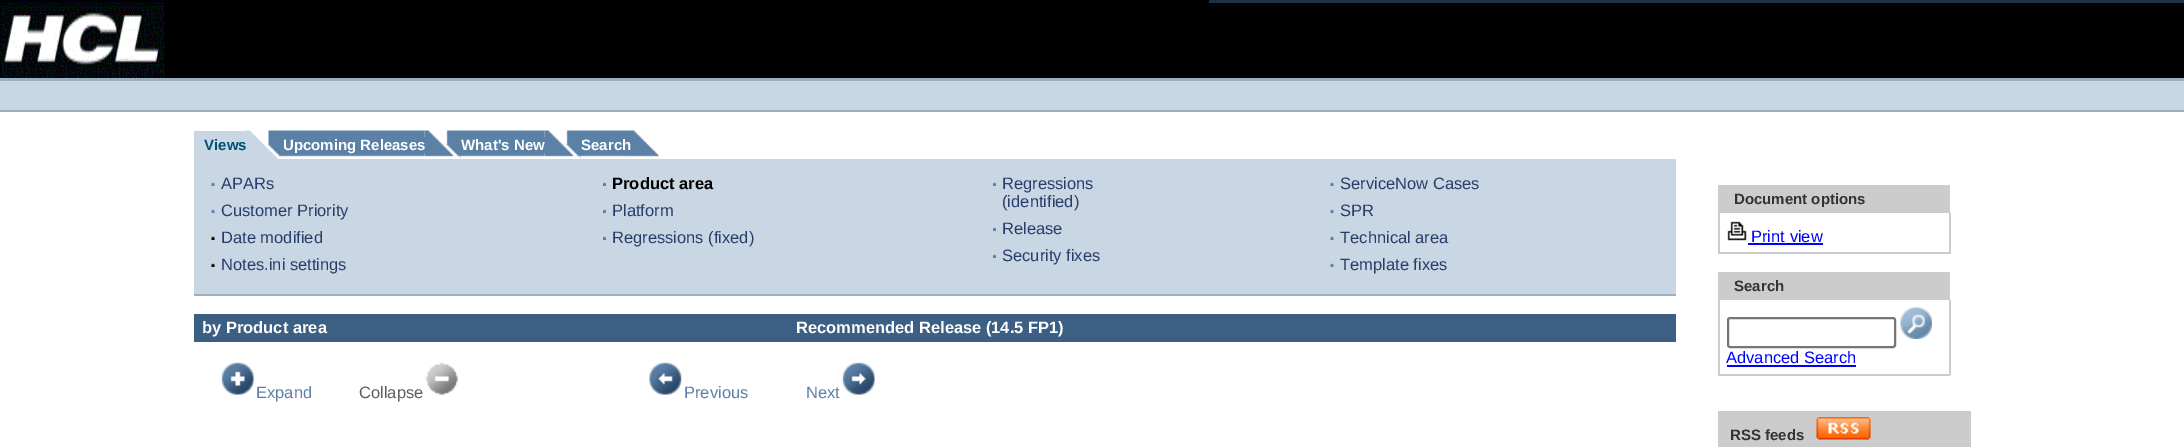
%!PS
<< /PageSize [2184 447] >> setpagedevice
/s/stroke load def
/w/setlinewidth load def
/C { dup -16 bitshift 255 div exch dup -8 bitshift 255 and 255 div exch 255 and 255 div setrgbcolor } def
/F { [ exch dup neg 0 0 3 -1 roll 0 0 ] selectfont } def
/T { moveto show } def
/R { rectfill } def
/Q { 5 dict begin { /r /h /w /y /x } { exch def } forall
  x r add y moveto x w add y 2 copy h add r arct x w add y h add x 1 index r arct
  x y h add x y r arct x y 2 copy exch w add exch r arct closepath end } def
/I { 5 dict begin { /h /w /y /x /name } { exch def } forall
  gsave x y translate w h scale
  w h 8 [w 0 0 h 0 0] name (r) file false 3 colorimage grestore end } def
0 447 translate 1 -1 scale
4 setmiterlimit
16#FFFFFF C
0 0 2184 447 R
16#000000 C
0 0 165 1 R
(1.rgb) 0 1 165 77 I
165 0 1044 78 R
1209 3 975 75 R
16#203143 C
1209 0 975 3 R
16#C8D7E3 C
0 81 2184 29 R
16#99AFC4 C
0 78 2184 3 R
0 110 2184 2 R
16#C8D7E3 C
194 131 52 28 R
(2.rgb) 246 130 36 29 I
(6.rgb) 282 130 143 27 I
(3.rgb) 424 130 37 29 I
(7.rgb) 460 130 85 29 I
(4.rgb) 544 130 37 29 I
(5.rgb) 630 130 36 29 I
/LiberationSans-Bold 15 F
16#005077 C
(Views) 204 150 T
16#5C81A7 C
424 137 1 16 R
16#FFFFFF C
(Upcoming Releases) 283 150 T
16#5C81A7 C
544 137 1 16 R
16#FFFFFF C
(What's New) 461 150 T
(8.rgb) 580 130 50 29 I
(Search) 581 150 T
16#C8D7E3 C
194 159 1482 135 R
(9.rgb) 211 182 4 4 I
/LiberationSans-Regular 16.5 F
16#293D6B C
(APARs) 221 189 T
(9.rgb) 211 209 4 4 I
(Customer Priority) 221 216 T
(10.rgb) 211 236 4 4 I
(Date modified) 221 243 T
(10.rgb) 211 263 4 4 I
(Notes.ini settings) 221 270 T
(11.rgb) 603 182 3 4 I
/LiberationSans-Bold 16.5 F
16#000000 C
(Product area) 612 189 T
(11.rgb) 603 209 3 4 I
/LiberationSans-Regular 16.5 F
16#293D6B C
(Platform) 612 216 T
(11.rgb) 603 236 3 4 I
(Regressions \(fixed\)) 612 243 T
(11.rgb) 993 182 3 4 I
(Regressions) 1002 189 T
(\(identified\)) 1002 207 T
(11.rgb) 993 227 3 4 I
(Release) 1002 234 T
(11.rgb) 993 254 3 4 I
(Security fixes) 1002 261 T
(9.rgb) 1330 182 4 4 I
(ServiceNow Cases) 1340 189 T
(9.rgb) 1330 209 4 4 I
(SPR) 1340 216 T
(9.rgb) 1330 236 4 4 I
(Technical area) 1340 243 T
(9.rgb) 1330 263 4 4 I
(Template fixes) 1340 270 T
16#98B1C4 C
194 294 1482 2 R
16#3C5F84 C
194 314 1482 28 R
/LiberationSans-Bold 16.5 F
16#FFFFFF C
(by Product area) 202 333 T
(Recommended Release \(14.5 FP1\)) 796 333 T
(12.rgb) 221 362 33 33 I
/LiberationSans-Regular 16.5 F
16#5C81A7 C
(Expand) 256 398 T
16#5F5F5F C
(Collapse) 359 398 T
(13.rgb) 425 362 33 33 I
(14.rgb) 649 362 33 33 I
16#5C81A7 C
(Previous) 684 398 T
(Next) 806 398 T
(15.rgb) 842 362 33 33 I
16#CCCCCC C
1718 185 232 28 R
/LiberationSans-Bold 15 F
16#333333 C
(Document options) 1734 204 T
16#CCCCCC C
1949 213 2 41 R
1718 252 232 2 R
1718 213 2 41 R
(16.rgb) 1727 221 20 20 I
/LiberationSans-Regular 16.5 F
16#0000FF C
(Print view) 1751 242 T
1748 243 75 2 R
16#CCCCCC C
1718 272 232 28 R
/LiberationSans-Bold 15 F
16#333333 C
(Search) 1734 291 T
16#CCCCCC C
1949 300 2 75 R
1718 374 232 2 R
1718 300 2 75 R
16#767676 C
2 w
1728 318 167 29 2 Q s
(17.rgb) 1900 307 32 32 I
/LiberationSans-Regular 16.5 F
16#0000FF C
(Advanced Search) 1726 363 T
1727 365 129 2 R
16#CCCCCC C
1718 411 253 36 R
/LiberationSans-Bold 15 F
16#333333 C
(RSS feeds) 1730 440 T
(18.rgb) 1816 417 55 23 I
showpage
